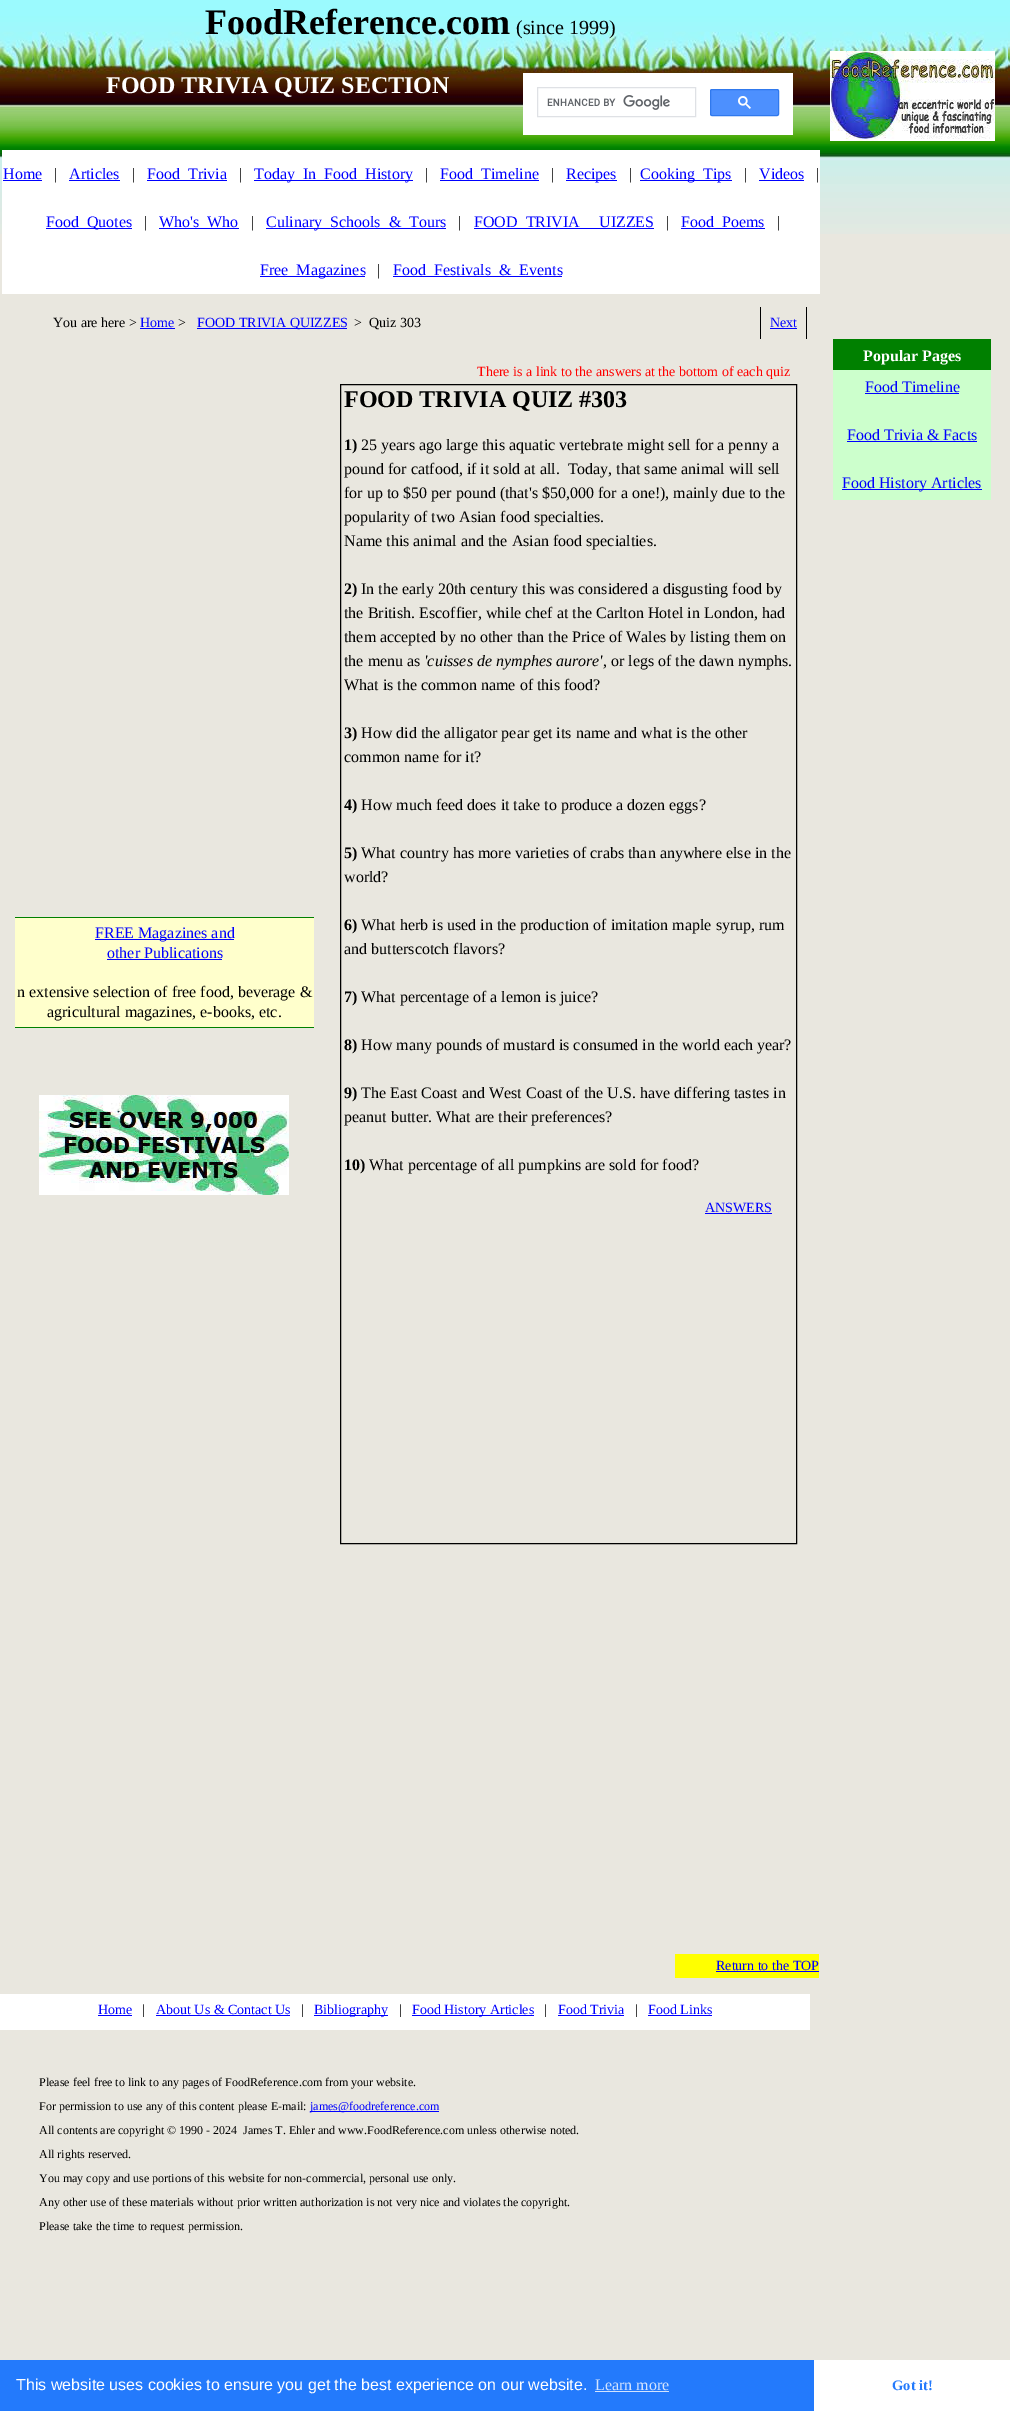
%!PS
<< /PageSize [1010 2411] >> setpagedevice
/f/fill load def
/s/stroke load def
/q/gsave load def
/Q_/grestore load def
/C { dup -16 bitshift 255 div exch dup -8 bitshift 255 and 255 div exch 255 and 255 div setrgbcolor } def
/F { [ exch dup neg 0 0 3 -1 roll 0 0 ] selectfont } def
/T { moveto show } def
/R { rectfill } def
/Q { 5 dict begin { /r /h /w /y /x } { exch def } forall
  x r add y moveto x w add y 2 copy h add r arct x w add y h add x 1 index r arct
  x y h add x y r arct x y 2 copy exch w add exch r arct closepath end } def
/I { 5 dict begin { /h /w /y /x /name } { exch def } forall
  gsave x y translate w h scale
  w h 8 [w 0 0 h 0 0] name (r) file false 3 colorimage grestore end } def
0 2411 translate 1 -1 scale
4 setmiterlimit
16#E9E7DF C
0 0 1010 2411 R
(1.rgb) 0 0 1010 234 I
/LiberationSerif-Bold 36 F
16#000000 C
(FoodReference.com) 205 34 T
/LiberationSerif-Regular 20 F
(\(since 1999\)) 516 34 T
/LiberationSerif-Bold 24 F
16#FFFFFF C
(FOOD TRIVIA QUIZ SECTION) 106 93 T
523 73 270 62 R
16#DFE1E5 C
537.5 87.5 158 29 rectstroke
(2.rgb) 547 95 123 15 I
16#4D90FE C
710.5 89.5 68 26 1.5 Q q f Q_
16#3079ED C
s
(3.rgb) 738 96 13 13 I
16#FFFFFF C
2 150 818 144 R
/LiberationSerif-Regular 16 F
16#0000FF C
(Home) 3 179 T
3 180 39 1 R
16#000000 C
(|) 54 179 T
16#0000FF C
(Articles) 69 179 T
69 180 51 1 R
16#000000 C
(|) 132 179 T
16#0000FF C
147 180 80 1 R
(Food_Trivia) 147 179 T
16#000000 C
(|) 239 179 T
16#0000FF C
254 180 159 1 R
(Today_In_Food_History) 254 179 T
16#000000 C
(|) 425 179 T
16#0000FF C
440 180 99 1 R
(Food_Timeline) 440 179 T
16#000000 C
(|) 551 179 T
16#0000FF C
566 180 51 1 R
(Recipes) 566 179 T
16#000000 C
(|) 629 179 T
16#0000FF C
640 180 92 1 R
(Cooking_Tips) 640 179 T
16#000000 C
(|) 744 179 T
16#0000FF C
(Videos) 759 179 T
759 180 45 1 R
16#000000 C
(|) 816 179 T
16#0000FF C
46 228 86 1 R
(Food_Quotes) 46 227 T
16#000000 C
(|) 144 227 T
16#0000FF C
159 228 80 1 R
(Who's_Who) 159 227 T
16#000000 C
(|) 251 227 T
16#0000FF C
266 228 180 1 R
(Culinary_Schools_&_Tours) 266 227 T
16#000000 C
(|) 458 227 T
16#0000FF C
474 228 180 1 R
(FOOD_TRIVIA) 474 227 T
(UIZZES) 599 227 T
16#000000 C
(|) 666 227 T
16#0000FF C
681 228 84 1 R
(Food_Poems) 681 227 T
16#000000 C
(|) 777 227 T
16#0000FF C
260 276 105 1 R
(Free_Magazines) 260 275 T
16#000000 C
(|) 377 275 T
16#0000FF C
393 276 169 1 R
(Food_Festivals_&_Events) 393 275 T
/LiberationSerif-Regular 14 F
16#000000 C
(You are here >) 53 327 T
16#0000FF C
(Home) 140 327 T
140 328 35 1 R
16#000000 C
(>) 178 327 T
16#0000FF C
197 328 150 1 R
(FOOD TRIVIA QUIZZES) 197 327 T
16#000000 C
(>  Quiz 303) 354 327 T
806 307 1 32 R
760 307 1 32 R
16#0000FF C
(Next) 770 327 T
770 328 27 1 R
16#FF0000 C
(There is a link to the answers at the bottom of each quiz) 477 376 T
16#FFFFCC C
15 918 299 109 R
16#008000 C
15 917 299 1 R
15 1027 299 1 R
16#0000FF C
95 939 139 1 R
/LiberationSerif-Regular 16 F
(FREE Magazines and) 95 938 T
(other Publications) 107 958 T
107 959 115 1 R
16#000000 C
(n extensive selection of free food, beverage &) 17 997 T
(agricultural magazines, e-books, etc.) 47 1017 T
(4.rgb) 39 1095 250 100 I
340.5 384.5 456 1159 rectstroke
/LiberationSerif-Bold 24 F
(FOOD TRIVIA QUIZ #303) 344 407 T
/LiberationSerif-Bold 16 F
(1\)) 344 450 T
/LiberationSerif-Regular 16 F
(25 years ago large this aquatic vertebrate might sell for a penny a) 361 450 T
(pound for catfood, if it sold at all.  Today, that same animal will sell) 344 474 T
(for up to $50 per pound \(that's $50,000 for a one!\), mainly due to the) 344 498 T
(popularity of two Asian food specialties.) 344 522 T
(Name this animal and the Asian food specialties.) 344 546 T
/LiberationSerif-Bold 16 F
(2\)) 344 594 T
/LiberationSerif-Regular 16 F
(In the early 20th century this was considered a disgusting food by) 361 594 T
(the British. Escoffier, while chef at the Carlton Hotel in London, had) 344 618 T
(them accepted by no other than the Price of Wales by listing them on) 344 642 T
(the menu as) 344 666 T
/LiberationSerif-Italic 16 F
('cuisses de nymphes aurore') 424 666 T
/LiberationSerif-Regular 16 F
(, or legs of the dawn nymphs.) 603 666 T
(What is the common name of this food?) 344 690 T
/LiberationSerif-Bold 16 F
(3\)) 344 738 T
/LiberationSerif-Regular 16 F
(How did the alligator pear get its name and what is the other) 361 738 T
(common name for it?) 344 762 T
/LiberationSerif-Bold 16 F
(4\)) 344 810 T
/LiberationSerif-Regular 16 F
(How much feed does it take to produce a dozen eggs?) 361 810 T
/LiberationSerif-Bold 16 F
(5\)) 344 858 T
/LiberationSerif-Regular 16 F
(What country has more varieties of crabs than anywhere else in the) 361 858 T
(world?) 344 882 T
/LiberationSerif-Bold 16 F
(6\)) 344 930 T
/LiberationSerif-Regular 16 F
(What herb is used in the production of imitation maple syrup, rum) 361 930 T
(and butterscotch flavors?) 344 954 T
/LiberationSerif-Bold 16 F
(7\)) 344 1002 T
/LiberationSerif-Regular 16 F
(What percentage of a lemon is juice?) 361 1002 T
/LiberationSerif-Bold 16 F
(8\)) 344 1050 T
/LiberationSerif-Regular 16 F
(How many pounds of mustard is consumed in the world each year?) 361 1050 T
/LiberationSerif-Bold 16 F
(9\)) 344 1098 T
/LiberationSerif-Regular 16 F
(The East Coast and West Coast of the U.S. have differing tastes in) 361 1098 T
(peanut butter. What are their preferences?) 344 1122 T
/LiberationSerif-Bold 16 F
(10\)) 344 1170 T
/LiberationSerif-Regular 16 F
(What percentage of all pumpkins are sold for food?) 369 1170 T
/LiberationSerif-Regular 14 F
16#0000FF C
(ANSWERS) 705 1212 T
705 1213 67 1 R
16#FFFF00 C
675 1954 144 24 R
16#0000FF C
(Return to the TOP) 716 1970 T
716 1971 103 1 R
16#FFFFFF C
0 1994 810 36 R
16#0000FF C
(Home) 98 2014 T
98 2015 34 1 R
16#000000 C
(|) 142 2014 T
16#0000FF C
(About Us & Contact Us) 156 2014 T
156 2015 134 1 R
16#000000 C
(|) 301 2014 T
16#0000FF C
314 2015 74 1 R
(Bibliography) 314 2014 T
16#000000 C
(|) 399 2014 T
16#0000FF C
412 2015 122 1 R
(Food History Articles) 412 2014 T
16#000000 C
(|) 544 2014 T
16#0000FF C
(Food Trivia) 558 2014 T
558 2015 66 1 R
16#000000 C
(|) 635 2014 T
16#0000FF C
(Food Links) 648 2014 T
648 2015 64 1 R
/LiberationSerif-Regular 12 F
16#000000 C
(Please feel free to link to any pages of FoodReference.com from your website.) 39 2086 T
(For permission to use any of this content please E-mail:) 39 2110 T
16#0000FF C
310 2111 129 1 R
(james@foodreference.com) 310 2110 T
16#000000 C
(All contents are copyright © 1990 - 2024  James T. Ehler and www.FoodReference.com unless otherwise noted.) 39 2134 T
(All rights reserved.) 39 2158 T
(You may copy and use portions of this website for non-commercial, personal use only.) 39 2182 T
(Any other use of these materials without prior written authorization is not very nice and violates the copyright.) 39 2206 T
(Please take the time to request permission.) 39 2230 T
(5.rgb) 830 51 165 90 I
16#008000 C
833 339 158 31 R
/LiberationSerif-Bold 16 F
16#FFFFFF C
(Popular Pages) 863 361 T
16#CCFFCC C
833 370 158 130 R
/LiberationSerif-Regular 16 F
16#0000FF C
(Food Timeline) 865 392 T
865 393 94 1 R
(Food Trivia & Facts) 847 440 T
847 441 130 1 R
842 489 140 1 R
(Food History Articles) 842 488 T
16#237AFC C
0 2360 814 51 R
/LiberationSans-Regular 16 F
16#FFFFFF C
(This website uses cookies to ensure you get the best experience on our website.) 16 2390 T
/LiberationSerif-Regular 16 F
16#D3E4FE C
(Learn more) 595 2390 T
595 2391 74 1 R
16#FFFFFF C
814 2360 196 51 R
/LiberationSerif-Bold 14.5 F
16#237AFC C
(Got it!) 892 2390 T
showpage
